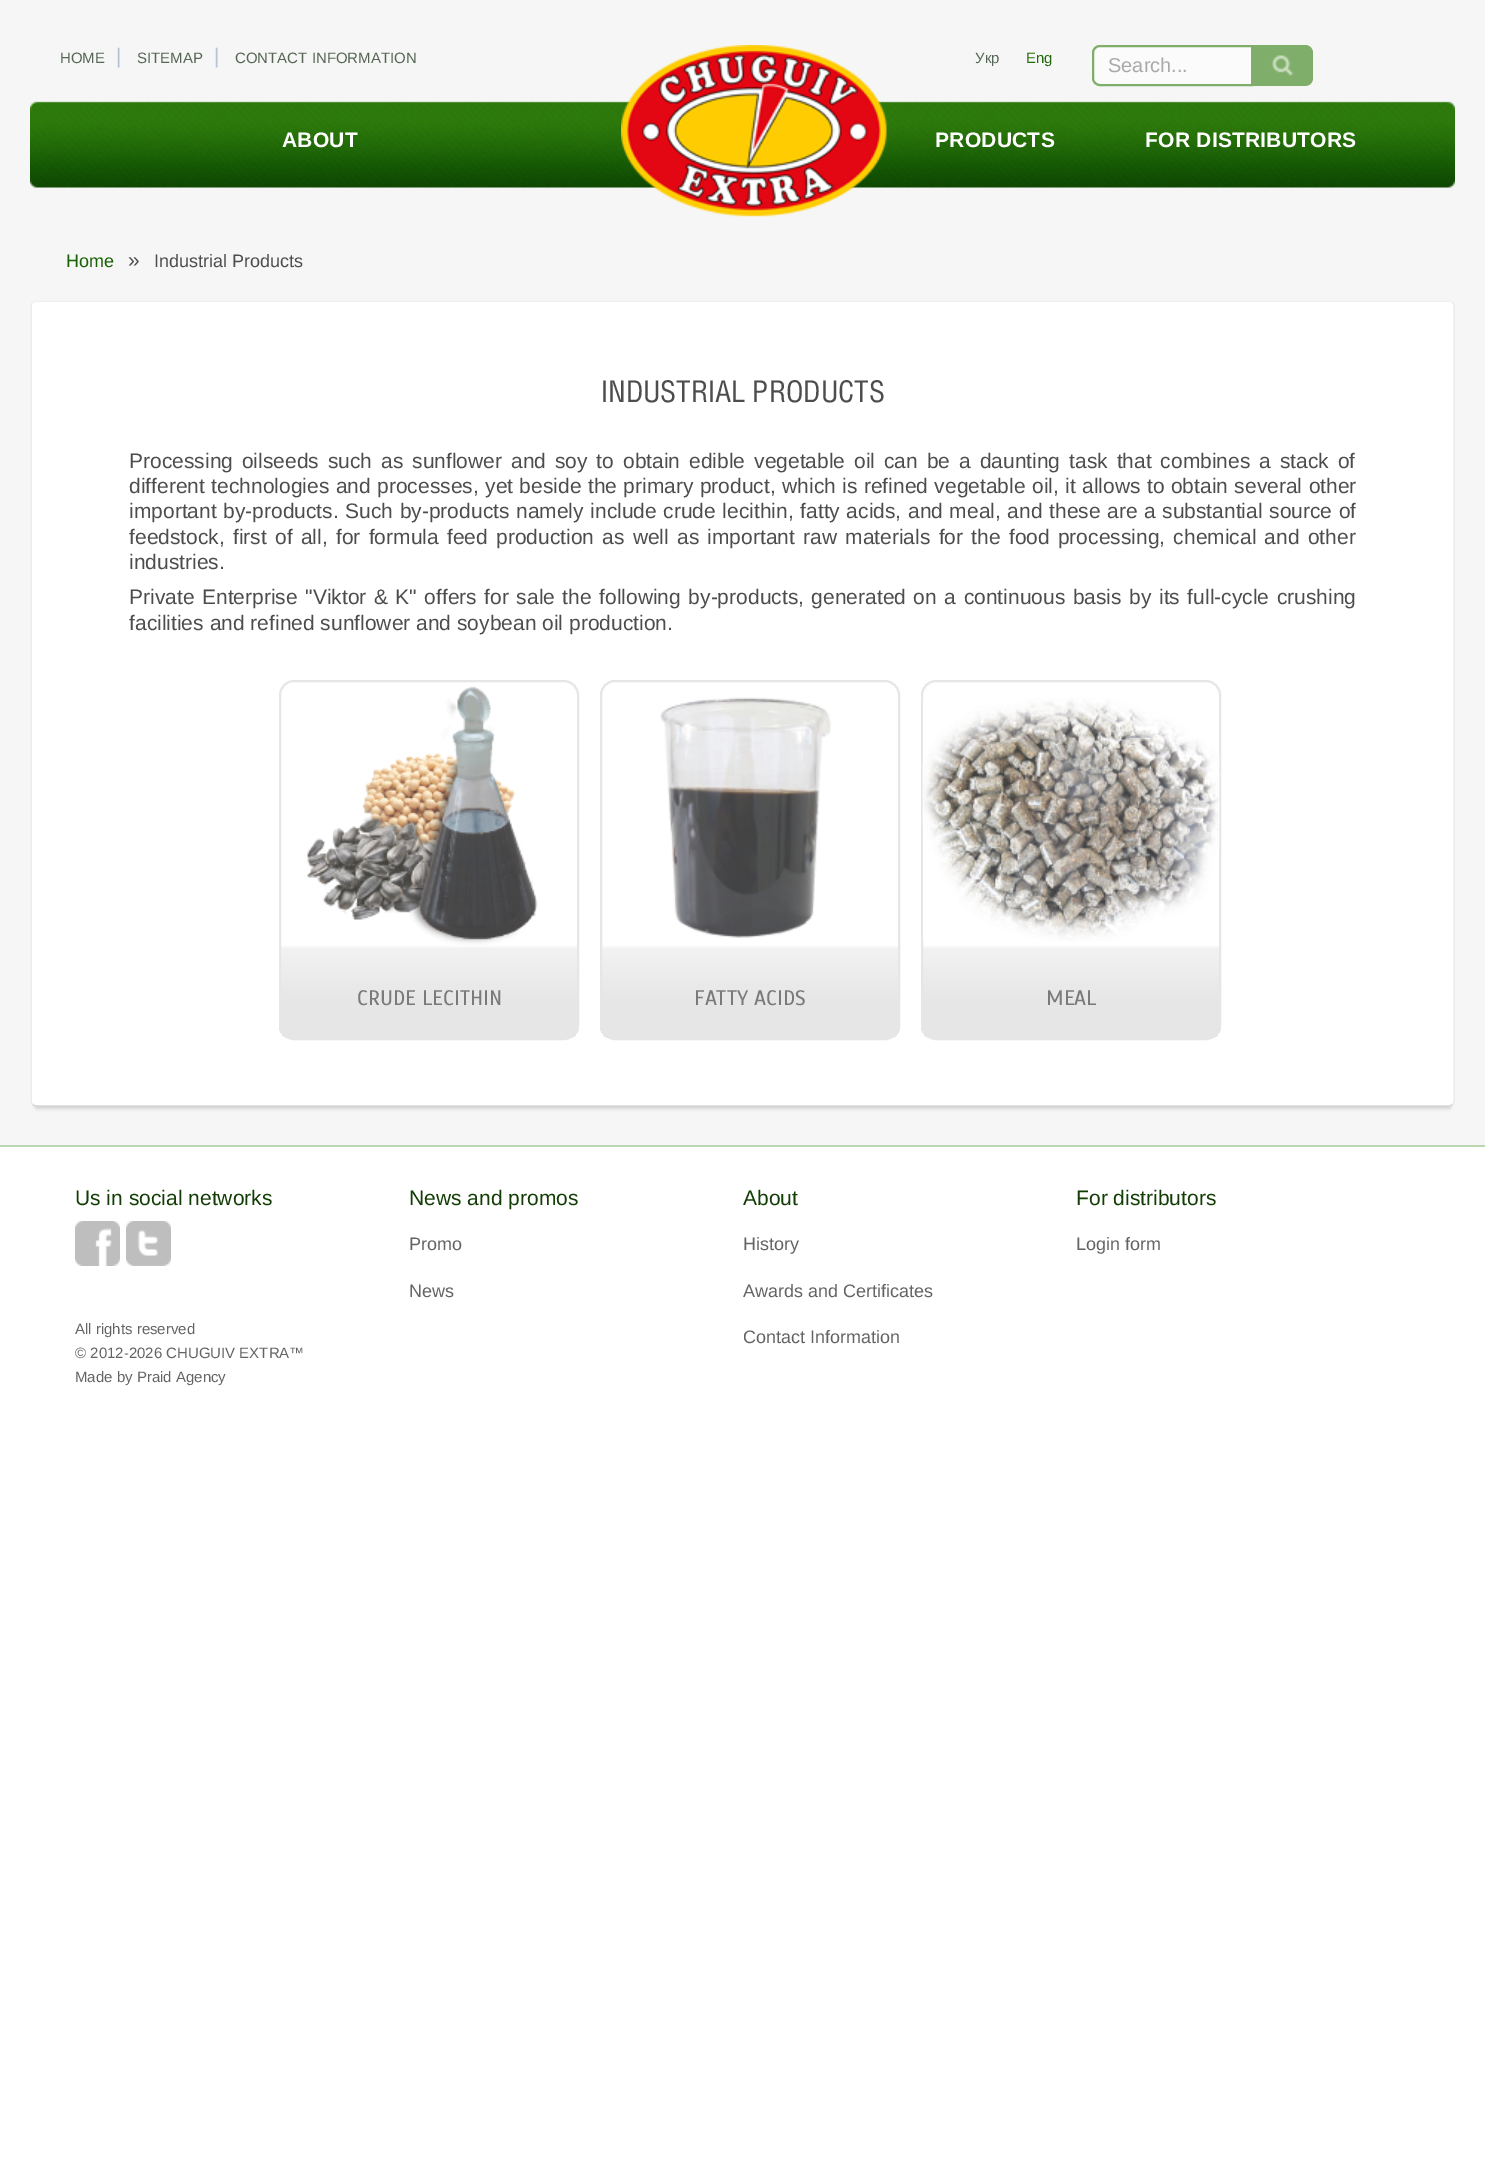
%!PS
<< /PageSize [1485 2162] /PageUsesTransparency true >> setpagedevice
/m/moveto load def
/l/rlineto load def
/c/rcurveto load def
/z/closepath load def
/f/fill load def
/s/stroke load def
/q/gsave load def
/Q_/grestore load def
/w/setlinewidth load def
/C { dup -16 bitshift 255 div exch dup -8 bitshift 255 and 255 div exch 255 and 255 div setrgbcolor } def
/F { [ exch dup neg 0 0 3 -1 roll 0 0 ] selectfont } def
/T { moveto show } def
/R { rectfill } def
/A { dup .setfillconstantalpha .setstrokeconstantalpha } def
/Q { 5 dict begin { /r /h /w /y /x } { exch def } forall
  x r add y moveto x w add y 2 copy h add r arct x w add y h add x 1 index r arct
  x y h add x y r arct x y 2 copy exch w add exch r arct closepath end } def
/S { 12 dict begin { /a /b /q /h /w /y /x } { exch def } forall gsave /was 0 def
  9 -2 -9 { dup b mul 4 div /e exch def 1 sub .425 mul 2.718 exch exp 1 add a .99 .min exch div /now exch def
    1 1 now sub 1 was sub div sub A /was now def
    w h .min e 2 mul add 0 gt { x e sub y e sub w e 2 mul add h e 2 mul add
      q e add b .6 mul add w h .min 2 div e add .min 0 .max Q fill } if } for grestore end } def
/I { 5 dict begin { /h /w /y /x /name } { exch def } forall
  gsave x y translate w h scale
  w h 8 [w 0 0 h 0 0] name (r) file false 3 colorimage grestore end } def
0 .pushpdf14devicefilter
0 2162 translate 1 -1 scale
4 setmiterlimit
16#FFFFFF C
0 0 1485 2162 R
16#F6F6F6 C
0 0 1485 1145 R
(1.rgb) 30 101 1425 87 I
/LiberationSans-Regular 15 F
16#556655 C
(HOME) 60 63 T
/LiberationSans-Regular 21 F
16#B5C4D4 C
(|) 116 63 T
/LiberationSans-Regular 15 F
16#556655 C
(SITEMAP) 137 63 T
/LiberationSans-Regular 21 F
16#B5C4D4 C
(|) 214 63 T
/LiberationSans-Regular 15 F
16#556655 C
(CONTACT INFORMATION) 235 63 T
/LiberationSans-Bold 21 F
16#FFFFFF C
282 147 m .25 0 (ABOUT) ashow
(2.rgb) 621 45 266 172 I
/LiberationSans-Regular 15 F
16#556655 C
(Укр) 975 63 T
16#226B09 C
(Eng) 1026 63 T
16#FBFBFB C
1100 46 m 152 0 l 0 39 l -152 0 l -4 0 -7 -3 -7 -7 c 0 -25 l 0 -4 3 -7 7 -7 c z q f Q_
16#7FAE6A C
2 w
s
/LiberationSans-Regular 20 F
16#A9A9A9 C
(Search...) 1108 72 T
16#7FAE6A C
1253 45 m 52 0 l 4.5 0 8 3.5 8 8 c 0 25 l 0 4.5 -3.5 8 -8 8 c -52 0 l z f
(3.rgb) 1271 55 23 21 I
/LiberationSans-Bold 21 F
16#FFFFFF C
935 147 m .25 0 (PRODUCTS) ashow
1145 147 m .25 0 (FOR DISTRIBUTORS) ashow
/LiberationSans-Regular 18 F
16#186205 C
(Home) 66 267 T
/LiberationSans-Regular 21 F
16#4D4D4D C
(») 128 267 T
/LiberationSans-Regular 18 F
(Industrial Products) 154 267 T
16#D5D5D5 C
35 311 1416 798 1.5 1.5 1 S
16#FFFFFF C
30 300 1425 807 6 Q f
16#F0F0F0 C
1.5 w
32.5 302.5 m 1 -1 2 -1.5 3.5 -1.5 c 1413 0 l 1.5 0 2.5 .5 3.5 1.5 c s
16#ECECEC C
1452.5 302.5 m 1 1 1.5 2 1.5 3.5 c 0 795 l 0 1.5 -.5 2.5 -1.5 3.5 c s
16#D5D5D5 C
1452.5 1104.5 m -1 1 -2 1.5 -3.5 1.5 c -1413 0 l -1.5 0 -2.5 -.5 -3.5 -1.5 c s
16#ECECEC C
32.5 1104.5 m -1 -1 -1.5 -2 -1.5 -3.5 c 0 -795 l 0 -1.5 .5 -2.5 1.5 -3.5 c s
/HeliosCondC-Regular 30 F
16#4D4D4D C
(INDUSTRIAL PRODUCTS) 601 402 T
/LiberationSans-Regular 21 F
129 468 m 3.1 0 32 (Processing oilseeds such as sunflower and soy to obtain edible vegetable oil can be a daunting task that combines a stack of) widthshow
129 493 m .6 0 32 (different technologies and processes, yet beside the primary product, which is refined vegetable oil, it allows to obtain several other) widthshow
129 518 m .75 0 32 (important by-products. Such by-products namely include crude lecithin, fatty acids, and meal, and these are a substantial source of) widthshow
129 544 m 2.4 0 32 (feedstock, first of all, for formula feed production as well as important raw materials for the food processing, chemical and other) widthshow
(industries.) 129 569 T
129 604 m 1.7 0 32 (Private Enterprise "Viktor & K" offers for sale the following by-products, generated on a continuous basis by its full-cycle crushing) widthshow
(facilities and refined sunflower and soybean oil production.) 129 630 T
q
279 680 300 360 15 Q clip newpath
q 279 681 m 300 0 l 0 357 l -300 0 l z clip newpath
<< /ShadingType 2 /ColorSpace /DeviceRGB /Coords [429 1038 429 681] /Extend [true true] /Function << /FunctionType 3 /Domain [0 1] /Functions [<< /FunctionType 2 /Domain [0 1] /C0 [.902 .902 .902] /C1 [.902 .902 .902] /N 1 >> << /FunctionType 2 /Domain [0 1] /C0 [.902 .902 .902] /C1 [.949 .949 .949] /N 1 >> << /FunctionType 2 /Domain [0 1] /C0 [.949 .949 .949] /C1 [1 1 1] /N 1 >> << /FunctionType 2 /Domain [0 1] /C0 [1 1 1] /C1 [1 1 1] /N 1 >>] /Bounds [.1 .25 .26] /Encode [0 1 0 1 0 1 0 1] >> >> shfill Q_
Q_
16#E6E6E6 C
2 w
280 681 298 358 14 Q s
(4.rgb) 307 686 231 259 I
/Scada-Regular 21 F
16#7A7A7A C
(CRUDE LECITHIN) 357 1005 T
q
600 680 300 360 15 Q clip newpath
q 600 681 m 300 0 l 0 357 l -300 0 l z clip newpath
<< /ShadingType 2 /ColorSpace /DeviceRGB /Coords [750 1038 750 681] /Extend [true true] /Function << /FunctionType 3 /Domain [0 1] /Functions [<< /FunctionType 2 /Domain [0 1] /C0 [.902 .902 .902] /C1 [.902 .902 .902] /N 1 >> << /FunctionType 2 /Domain [0 1] /C0 [.902 .902 .902] /C1 [.949 .949 .949] /N 1 >> << /FunctionType 2 /Domain [0 1] /C0 [.949 .949 .949] /C1 [1 1 1] /N 1 >> << /FunctionType 2 /Domain [0 1] /C0 [1 1 1] /C1 [1 1 1] /N 1 >>] /Bounds [.1 .25 .26] /Encode [0 1 0 1 0 1 0 1] >> >> shfill Q_
Q_
16#E6E6E6 C
601 681 298 358 14 Q s
(5.rgb) 660 697 171 241 I
16#7A7A7A C
(FATTY ACIDS) 694 1005 T
q
921 680 300 360 15 Q clip newpath
q 921 681 m 300 0 l 0 357 l -300 0 l z clip newpath
<< /ShadingType 2 /ColorSpace /DeviceRGB /Coords [1071 1038 1071 681] /Extend [true true] /Function << /FunctionType 3 /Domain [0 1] /Functions [<< /FunctionType 2 /Domain [0 1] /C0 [.902 .902 .902] /C1 [.902 .902 .902] /N 1 >> << /FunctionType 2 /Domain [0 1] /C0 [.902 .902 .902] /C1 [.949 .949 .949] /N 1 >> << /FunctionType 2 /Domain [0 1] /C0 [.949 .949 .949] /C1 [1 1 1] /N 1 >> << /FunctionType 2 /Domain [0 1] /C0 [1 1 1] /C1 [1 1 1] /N 1 >>] /Bounds [.1 .25 .26] /Encode [0 1 0 1 0 1 0 1] >> >> shfill Q_
Q_
16#E6E6E6 C
922 681 298 358 14 Q s
(6.rgb) 922 698 298 243 I
16#7A7A7A C
(MEAL) 1046 1005 T
16#BAD7B1 C
0 1145 1485 2 R
/LiberationSans-Regular 21 F
16#123D05 C
(Us in social networks) 75 1205 T
(7.rgb) 75 1221 45 45 I
(8.rgb) 126 1221 45 45 I
/LiberationSans-Regular 15 F
16#646464 C
(All rights reserved) 75 1334 T
(© 2012-2026 CHUGUIV EXTRA™) 75 1358 T
(Made by Praid Agency) 75 1382 T
/LiberationSans-Regular 21 F
16#123D05 C
(News and promos) 409 1205 T
/LiberationSans-Regular 18 F
16#646464 C
(Promo) 409 1250 T
(News) 409 1297 T
/LiberationSans-Regular 21 F
16#123D05 C
(About) 743 1205 T
/LiberationSans-Regular 18 F
16#646464 C
(History) 743 1250 T
(Awards and Certificates) 743 1297 T
(Contact Information) 743 1343 T
/LiberationSans-Regular 21 F
16#123D05 C
(For distributors) 1076 1205 T
/LiberationSans-Regular 18 F
16#646464 C
(Login form) 1076 1250 T
.poppdf14devicefilter showpage
